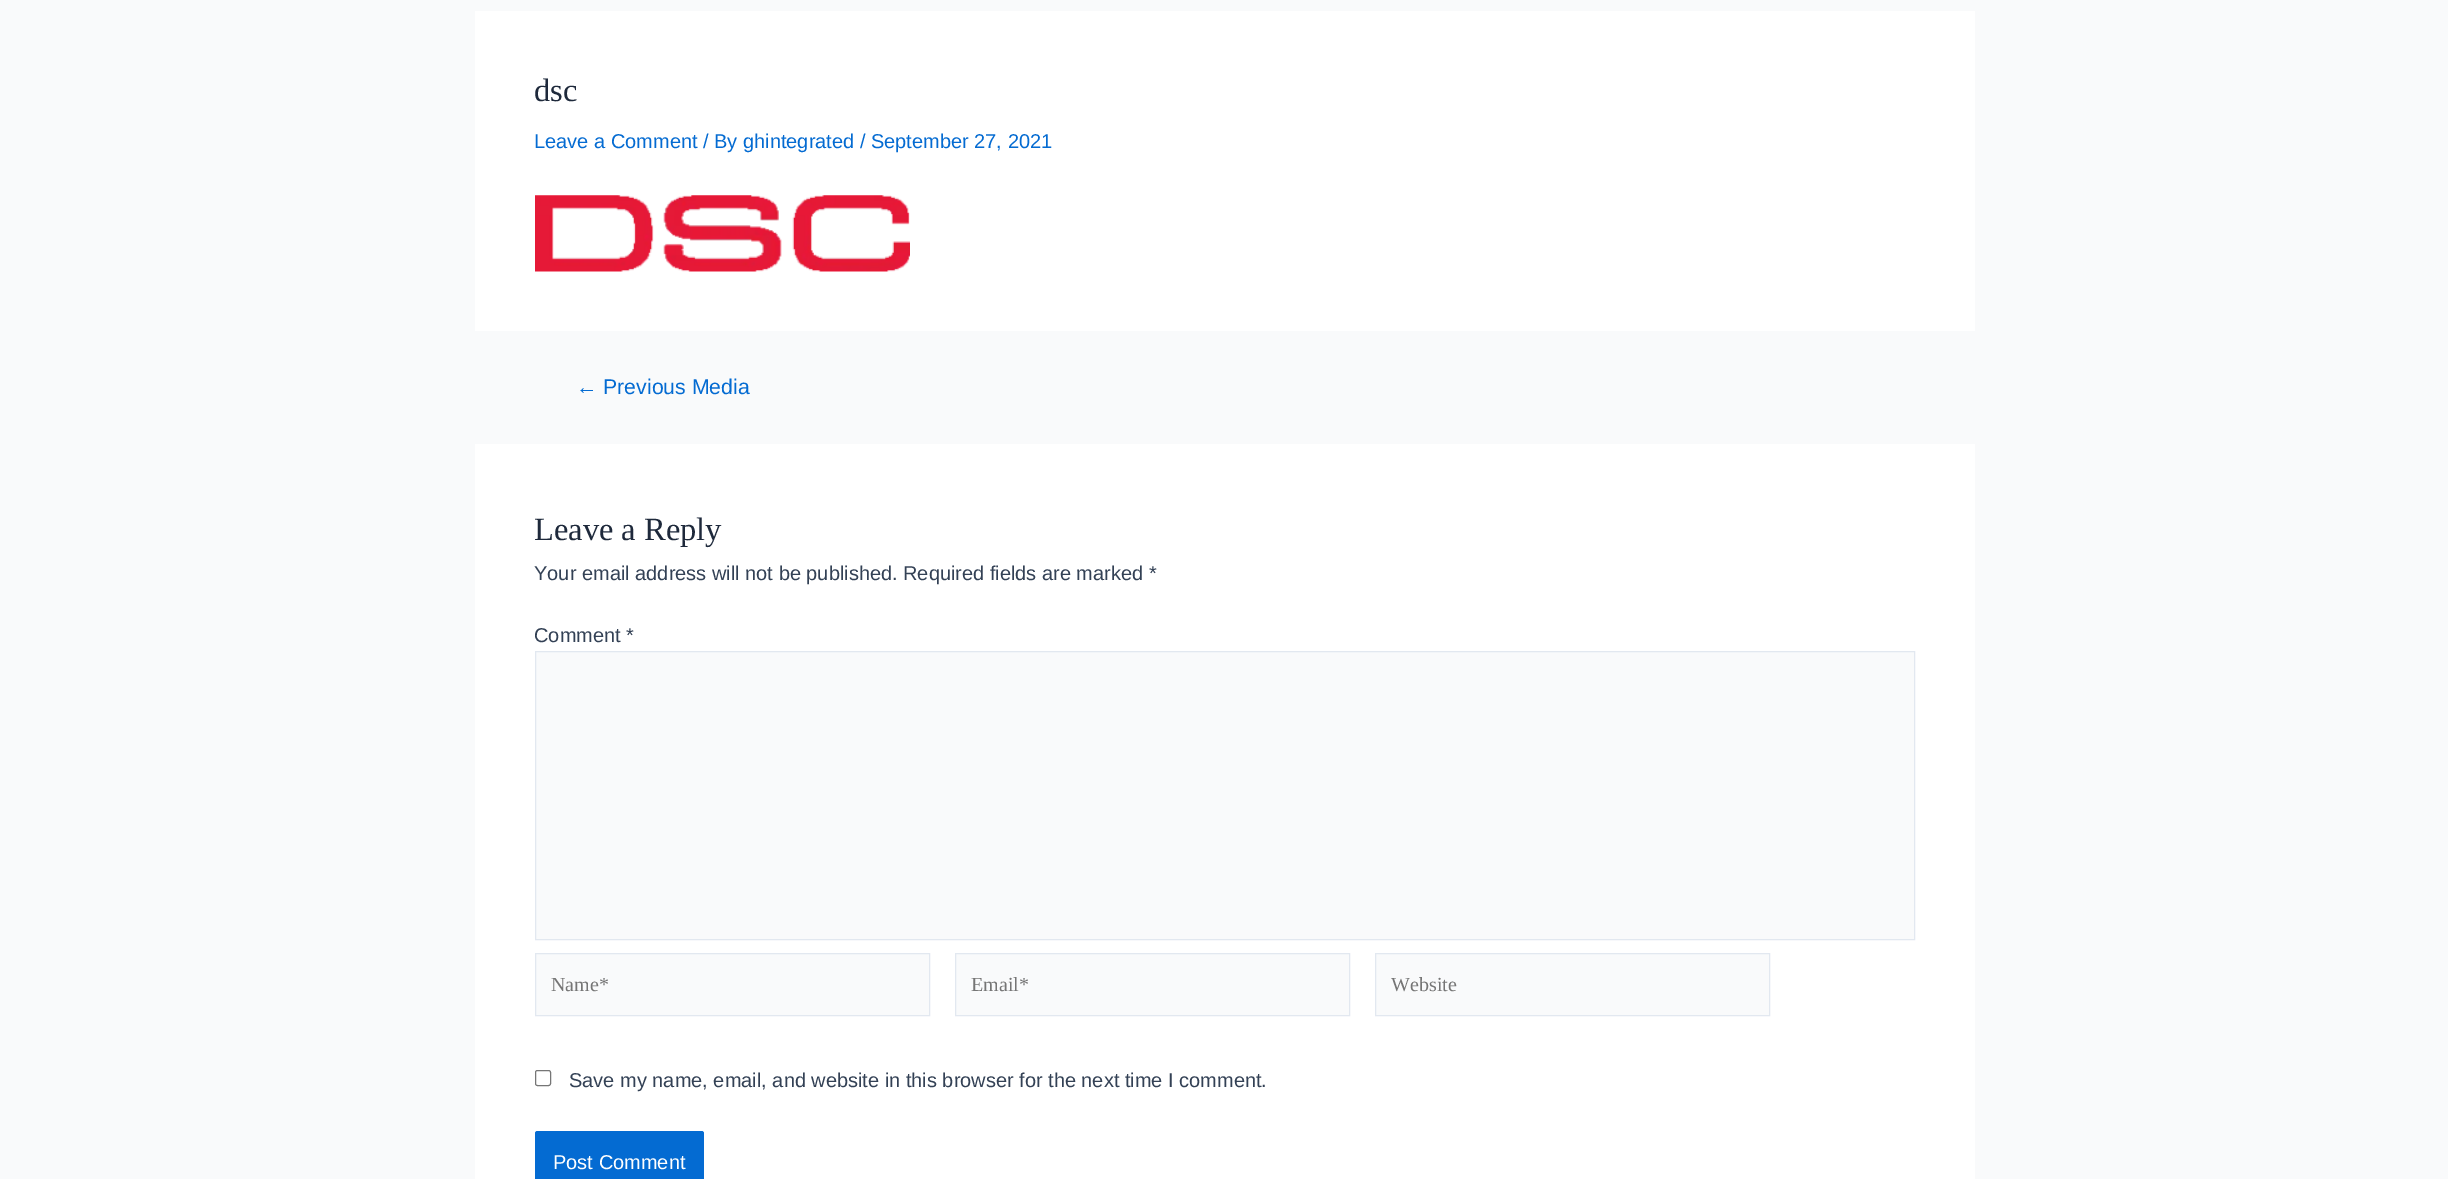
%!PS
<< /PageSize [2448 1179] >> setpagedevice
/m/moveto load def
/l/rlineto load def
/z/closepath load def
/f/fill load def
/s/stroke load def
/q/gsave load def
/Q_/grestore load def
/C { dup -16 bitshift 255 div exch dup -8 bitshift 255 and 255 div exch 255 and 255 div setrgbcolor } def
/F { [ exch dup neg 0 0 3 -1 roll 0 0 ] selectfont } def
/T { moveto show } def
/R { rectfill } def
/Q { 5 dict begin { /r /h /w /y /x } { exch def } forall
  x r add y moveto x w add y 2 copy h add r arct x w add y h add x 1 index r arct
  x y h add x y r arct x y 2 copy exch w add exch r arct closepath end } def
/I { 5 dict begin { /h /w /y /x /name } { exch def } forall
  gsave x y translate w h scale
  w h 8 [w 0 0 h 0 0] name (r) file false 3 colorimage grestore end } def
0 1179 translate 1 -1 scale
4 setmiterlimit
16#F9FAFB C
0 0 2448 1179 R
16#FFFFFF C
475 11 1500 320 R
/LiberationSerif-Regular 32.5 F
16#1E293B C
(dsc) 534 101 T
/LiberationSans-Regular 20 F
16#046BD2 C
(Leave a Comment / By ghintegrated / September 27, 2021) 534 148 T
(1.rgb) 535 195 375 77 I
/LiberationSans-Regular 21.25 F
(← Previous Media) 576 394 T
16#FFFFFF C
475 444 1500 735 R
/LiberationSerif-Regular 32.5 F
16#1E293B C
(Leave a Reply) 534 540 T
/LiberationSans-Regular 20 F
16#334155 C
(Your email address will not be published. Required fields are marked *) 534 580 T
(Comment *) 534 642 T
16#F9FAFB C
535.5 651.5 m 1379 0 l 0 288 l -1379 0 l z q f Q_
16#E2E8F0 C
s
16#F9FAFB C
535.5 953.5 m 394 0 l 0 62 l -394 0 l z q f Q_
16#E2E8F0 C
s
/LiberationSerif-Regular 20 F
16#757575 C
(Name*) 551 991 T
16#F9FAFB C
955.5 953.5 m 394 0 l 0 62 l -394 0 l z q f Q_
16#E2E8F0 C
s
16#757575 C
(Email*) 971 991 T
16#F9FAFB C
1375.5 953.5 m 394 0 l 0 62 l -394 0 l z q f Q_
16#E2E8F0 C
s
16#757575 C
(Website) 1391 991 T
16#767676 C
535.5 1070.5 15 15 2 Q s
/LiberationSans-Regular 20 F
16#334155 C
(Save my name, email, and website in this browser for the next time I comment.) 569 1087 T
16#046BD2 C
535 1131 169 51 2.5 Q f
16#FFFFFF C
(Post Comment) 553 1169 T
showpage
